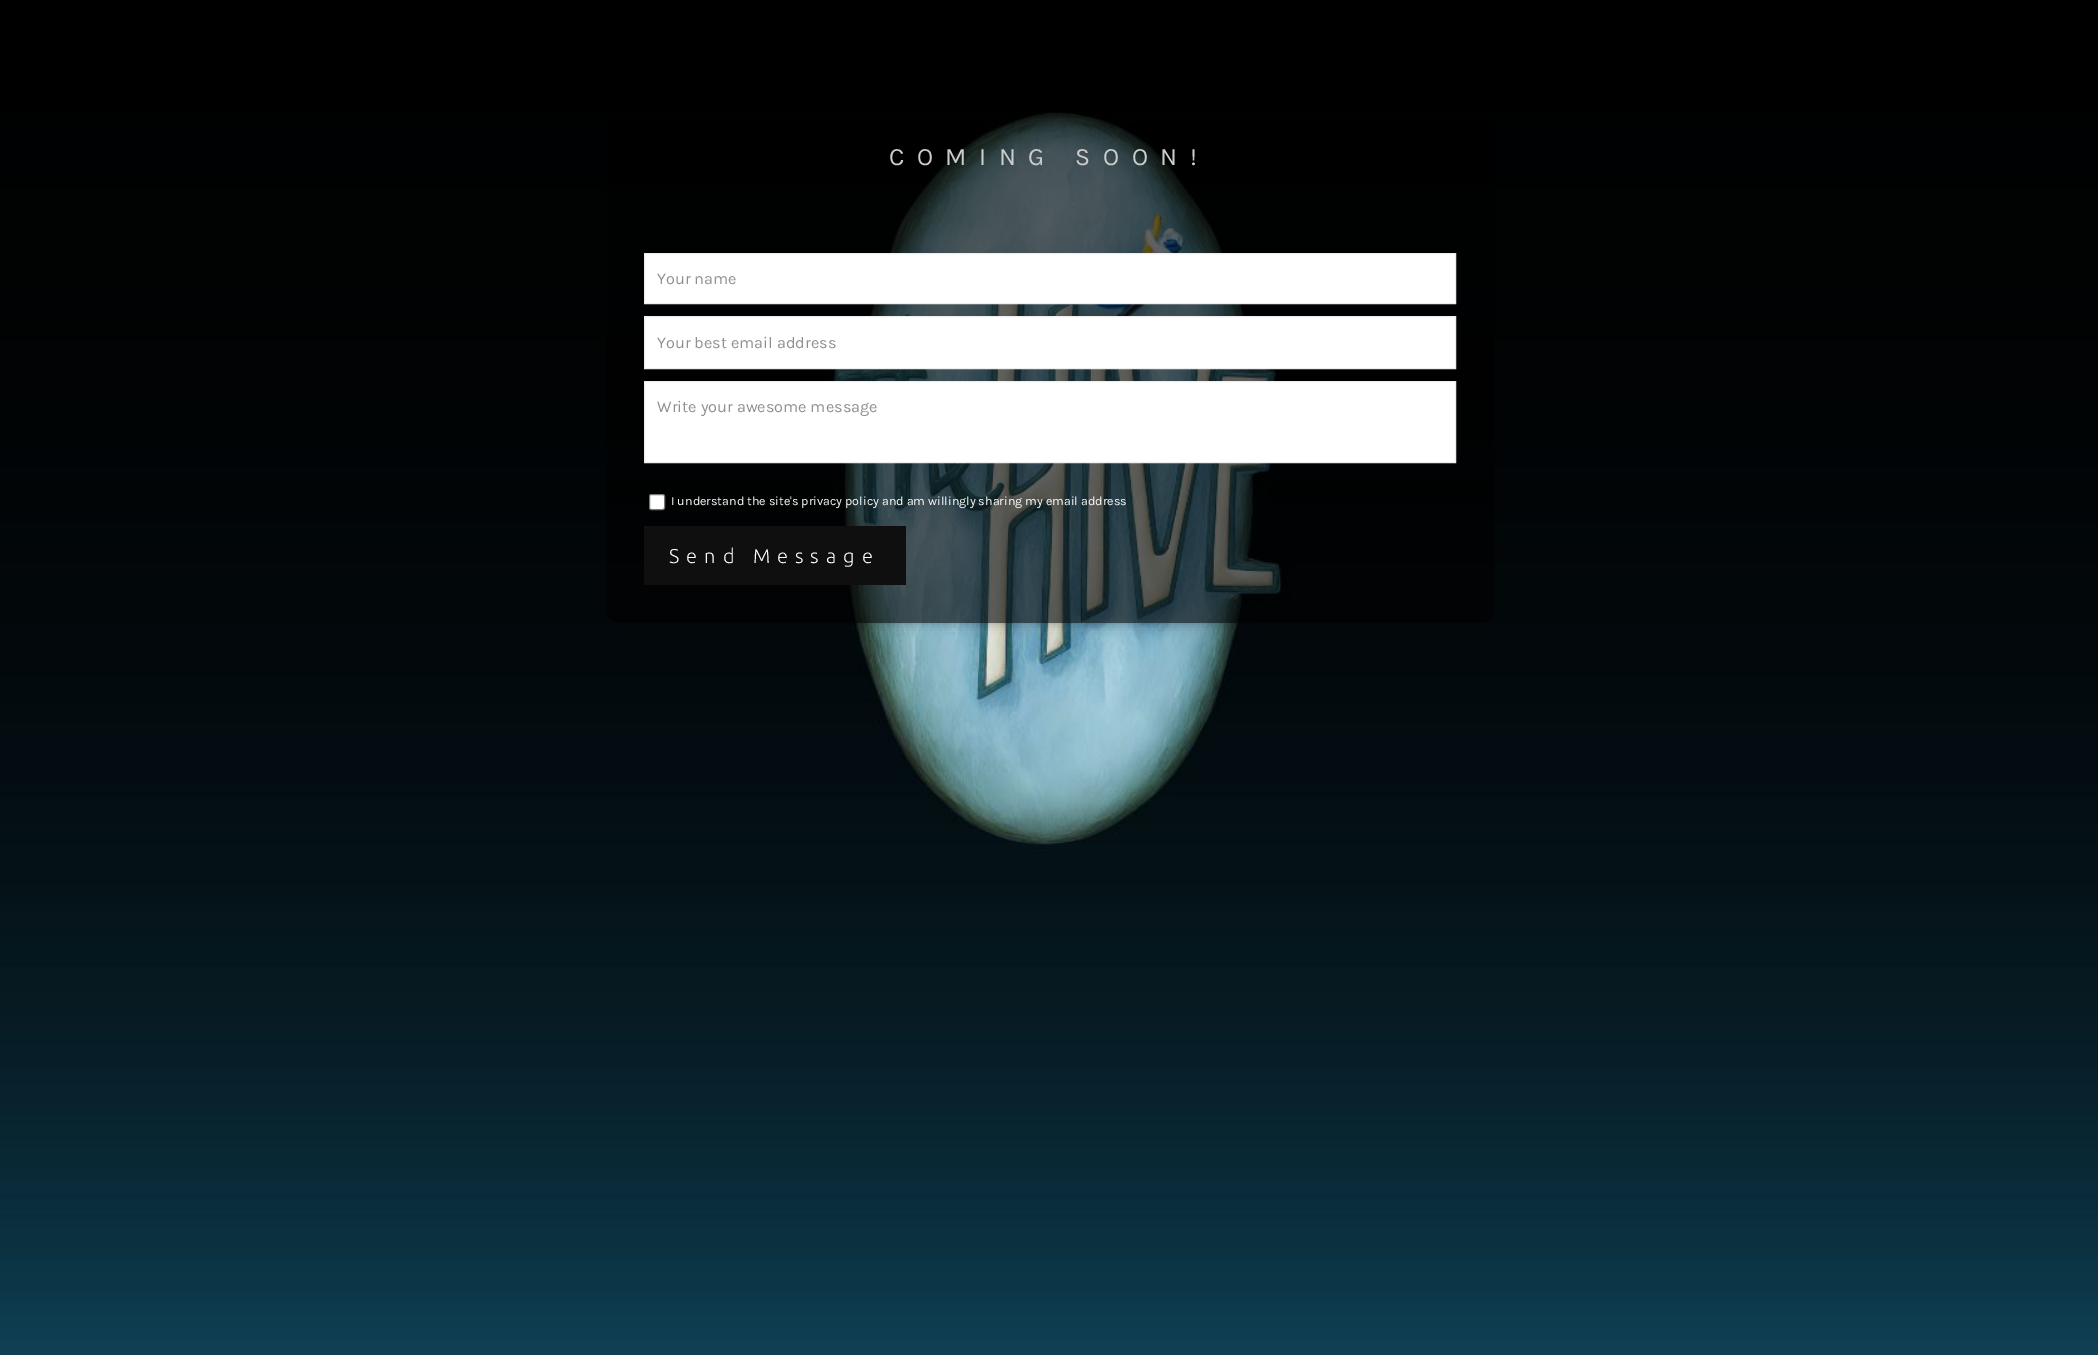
%!PS
<< /PageSize [2098 1355] /PageUsesTransparency true >> setpagedevice
/m/moveto load def
/l/rlineto load def
/c/rcurveto load def
/z/closepath load def
/f/fill load def
/s/stroke load def
/q/gsave load def
/Q_/grestore load def
/C { dup -16 bitshift 255 div exch dup -8 bitshift 255 and 255 div exch 255 and 255 div setrgbcolor } def
/F { [ exch dup neg 0 0 3 -1 roll 0 0 ] selectfont } def
/T { moveto show } def
/R { rectfill } def
/A { dup .setfillconstantalpha .setstrokeconstantalpha } def
/Q { 5 dict begin { /r /h /w /y /x } { exch def } forall
  x r add y moveto x w add y 2 copy h add r arct x w add y h add x 1 index r arct
  x y h add x y r arct x y 2 copy exch w add exch r arct closepath end } def
/S { 12 dict begin { /a /b /q /h /w /y /x } { exch def } forall gsave /was 0 def
  9 -2 -9 { dup b mul 4 div /e exch def 1 sub .425 mul 2.718 exch exp 1 add a .99 .min exch div /now exch def
    1 1 now sub 1 was sub div sub A /was now def
    w h .min e 2 mul add 0 gt { x e sub y e sub w e 2 mul add h e 2 mul add
      q e add b .6 mul add w h .min 2 div e add .min 0 .max Q fill } if } for grestore end } def
/I { 5 dict begin { /h /w /y /x /name } { exch def } forall
  gsave x y translate w h scale
  w h 8 [w 0 0 h 0 0] name (r) file false 3 colorimage grestore end } def
0 .pushpdf14devicefilter
0 1355 translate 1 -1 scale
4 setmiterlimit
16#000000 C
0 0 2098 1355 R
(1.rgb) 0 112 2098 1243 I
q
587 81 m 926 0 l 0 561 l -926 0 l z 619 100 m 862 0 l 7 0 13 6 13 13 c 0 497 l 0 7 -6 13 -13 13 c -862 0 l -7 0 -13 -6 -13 -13 c 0 -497 l 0 -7 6 -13 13 -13 c z eoclip newpath
606 100 888 523 13 6 .33 S
Q_
0.6 A
606 100 888 523 13 Q f
/Karla-Regular 25 F
1 A
16#CCCCCC C
889 165 m 12.5 0 (COMING SOON!) ashow
16#FFFFFF C
644.5 253.5 m 811 0 l 0 50 l -811 0 l z q f Q_
16#EEEEEE C
s
/Karla-Regular 16.25 F
16#8F8F8F C
(Your name) 657 284 T
16#FFFFFF C
644.5 316.5 m 811 0 l 0 52 l -811 0 l z q f Q_
16#EEEEEE C
s
16#8F8F8F C
(Your best email address) 657 348 T
16#FFFFFF C
644.5 381.5 m 811 0 l 0 81 l -811 0 l z q f Q_
16#EEEEEE C
s
16#8F8F8F C
(Write your awesome message) 657 412 T
16#FFFFFF C
649.5 494.5 15 15 2 Q q f Q_
16#767676 C
s
/Karla-Regular 12.5 F
16#FFFFFF C
(I understand the site's privacy policy and am willingly sharing my email address) 671 505 T
16#0F0F0F C
644 526 262 59 R
/Ubuntu-Light 20 F
16#FFFFFF C
669 563 m 7 0 (Send Message) ashow
.poppdf14devicefilter showpage
